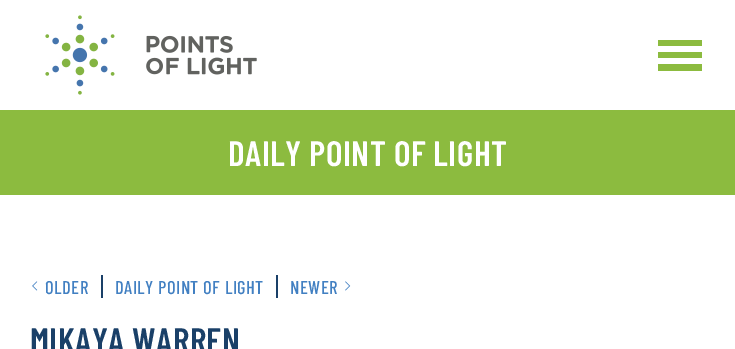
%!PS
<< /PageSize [735 349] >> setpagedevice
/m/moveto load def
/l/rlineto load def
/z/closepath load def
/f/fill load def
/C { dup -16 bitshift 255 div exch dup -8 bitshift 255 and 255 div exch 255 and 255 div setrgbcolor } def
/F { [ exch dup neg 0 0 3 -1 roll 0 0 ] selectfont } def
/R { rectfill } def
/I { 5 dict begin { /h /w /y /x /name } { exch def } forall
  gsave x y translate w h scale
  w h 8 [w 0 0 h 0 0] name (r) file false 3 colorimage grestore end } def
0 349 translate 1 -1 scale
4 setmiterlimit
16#FFFFFF C
0 0 735 349 R
(1.rgb) 45 15 212 80 I
16#8CBB3F C
658 40 m 44 0 l 0 6 l -44 0 l z 658 52 m 44 0 l 0 6 l -44 0 l z 658 64 m 44 0 l 0 7 l -44 0 l z f
0 110 735 85 R
/BarlowCondensed-SemiBold 35.25 F
16#FFFFFF C
228 166 m .5 0 (DAILY POINT OF LIGHT) ashow
16#1A4068 C
101 275 2 23 R
(2.rgb) 32 281 6 10 I
/BarlowCondensed-Medium 18.5 F
16#4280C2 C
45 294 m .5 0 (OLDER) ashow
115 294 m .5 0 (DAILY POINT OF LIGHT) ashow
16#1A4068 C
276 275 2 23 R
16#4280C2 C
290 294 m .5 0 (NEWER) ashow
(3.rgb) 345 281 6 10 I
/BarlowCondensed-SemiBold 35.25 F
16#1A4068 C
30 353 m .5 0 (MIKAYA WARREN) ashow
showpage
